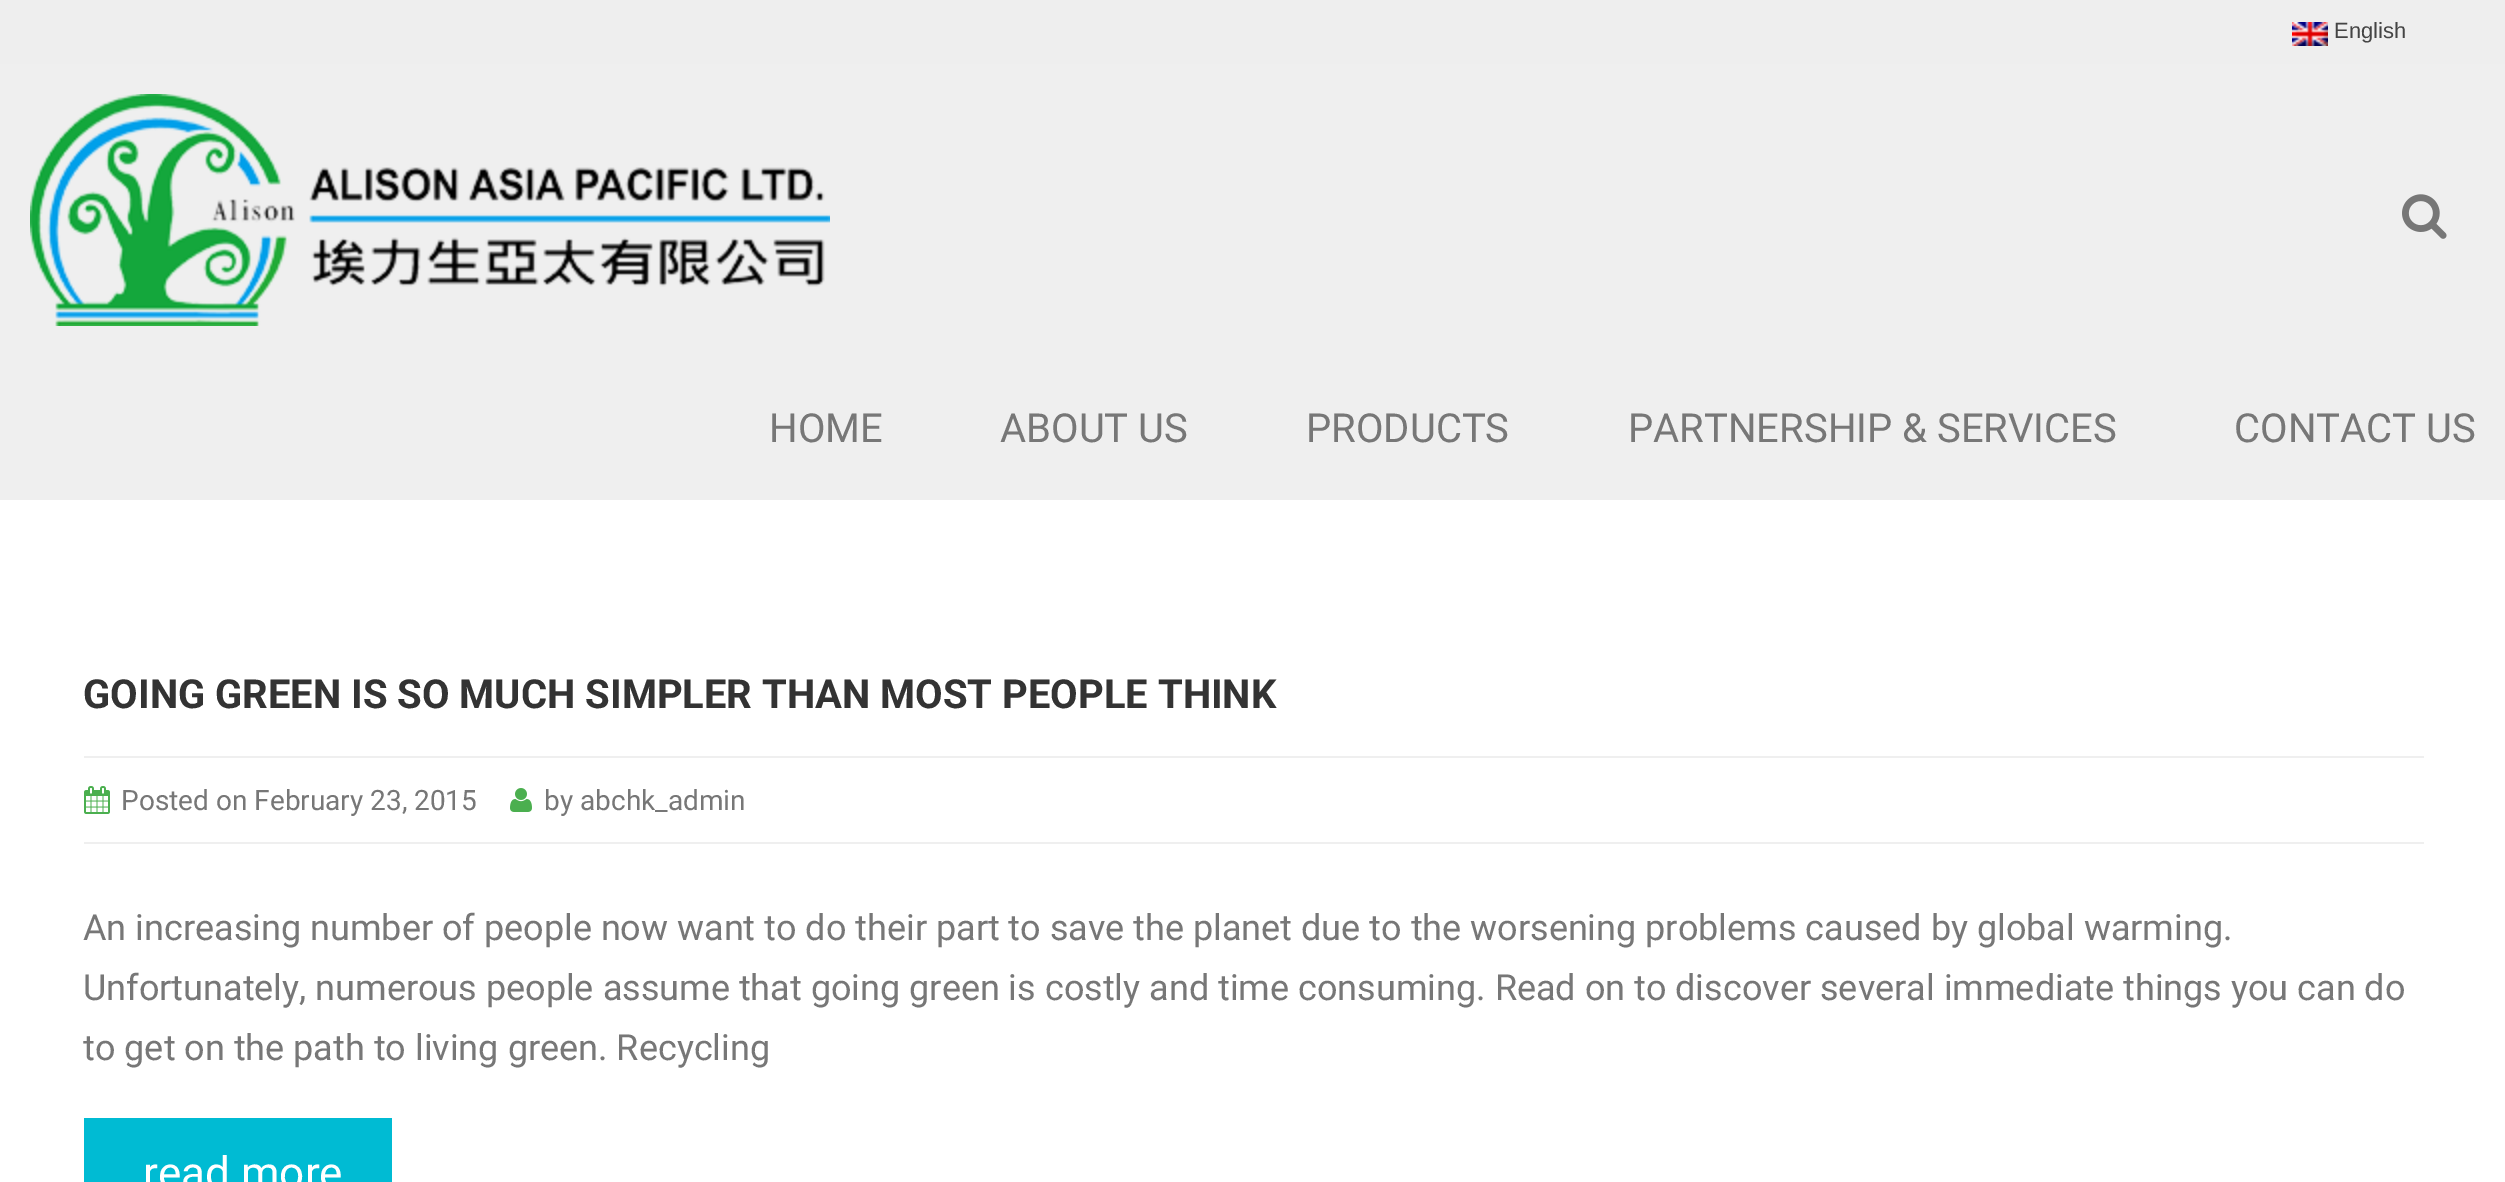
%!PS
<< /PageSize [2505 1182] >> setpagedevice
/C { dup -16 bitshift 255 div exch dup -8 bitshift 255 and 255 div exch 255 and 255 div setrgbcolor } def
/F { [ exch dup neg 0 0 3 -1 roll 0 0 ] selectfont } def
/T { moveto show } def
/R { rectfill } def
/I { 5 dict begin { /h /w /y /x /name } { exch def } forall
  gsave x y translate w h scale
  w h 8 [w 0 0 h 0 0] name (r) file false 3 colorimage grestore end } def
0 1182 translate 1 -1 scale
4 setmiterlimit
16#FFFFFF C
0 0 2505 1182 R
16#EEEEEE C
0 0 2505 64 R
(1.rgb) 2292 22 36 24 I
/LiberationSans-Regular 22 F
16#444444 C
(English) 2334 38 T
16#EFEFEF C
0 64 2505 436 R
(2.rgb) 30 94 800 232 I
(3.rgb) 2402 194 45 45 I
/Roboto-Regular 40 F
16#777777 C
(HOME) 769 442 T
(ABOUT US) 1000 442 T
(PRODUCTS) 1306 442 T
(PARTNERSHIP & SERVICES) 1628 442 T
(CONTACT US) 2234 442 T
/Roboto-Bold 40 F
16#333333 C
(GOING GREEN IS SO MUCH SIMPLER THAN MOST PEOPLE THINK) 83 708 T
16#EFEFEF C
84 756 2340 2 R
84 842 2340 2 R
(4.rgb) 84 786 26 28 I
/Roboto-Regular 28 F
16#777777 C
(Posted on February 23, 2015) 121 810 T
(5.rgb) 510 788 22 24 I
(by abchk_admin) 544 810 T
/Roboto-Regular 36 F
(An increasing number of people now want to do their part to save the planet due to the worsening problems caused by global warming.) 83 940 T
(Unfortunately, numerous people assume that going green is costly and time consuming. Read on to discover several immediate things you can do) 83 1000 T
(to get on the path to living green. Recycling) 83 1060 T
16#00BBD3 C
84 1118 308 64 R
/Roboto-Regular 44 F
16#FFFFFF C
(read more) 143 1188 T
showpage
